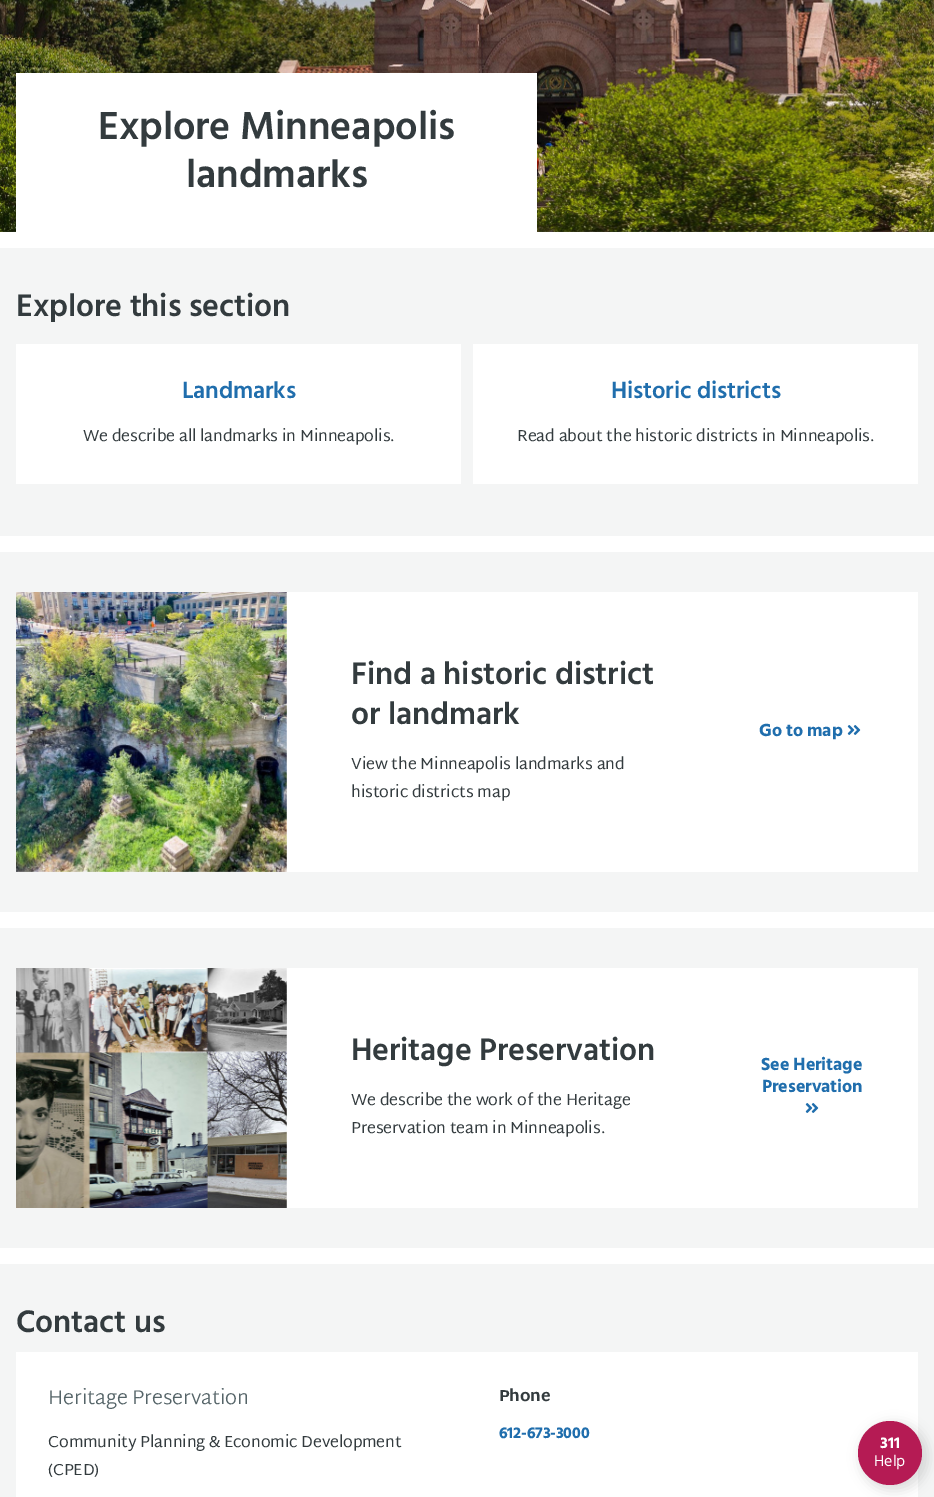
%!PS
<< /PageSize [934 1497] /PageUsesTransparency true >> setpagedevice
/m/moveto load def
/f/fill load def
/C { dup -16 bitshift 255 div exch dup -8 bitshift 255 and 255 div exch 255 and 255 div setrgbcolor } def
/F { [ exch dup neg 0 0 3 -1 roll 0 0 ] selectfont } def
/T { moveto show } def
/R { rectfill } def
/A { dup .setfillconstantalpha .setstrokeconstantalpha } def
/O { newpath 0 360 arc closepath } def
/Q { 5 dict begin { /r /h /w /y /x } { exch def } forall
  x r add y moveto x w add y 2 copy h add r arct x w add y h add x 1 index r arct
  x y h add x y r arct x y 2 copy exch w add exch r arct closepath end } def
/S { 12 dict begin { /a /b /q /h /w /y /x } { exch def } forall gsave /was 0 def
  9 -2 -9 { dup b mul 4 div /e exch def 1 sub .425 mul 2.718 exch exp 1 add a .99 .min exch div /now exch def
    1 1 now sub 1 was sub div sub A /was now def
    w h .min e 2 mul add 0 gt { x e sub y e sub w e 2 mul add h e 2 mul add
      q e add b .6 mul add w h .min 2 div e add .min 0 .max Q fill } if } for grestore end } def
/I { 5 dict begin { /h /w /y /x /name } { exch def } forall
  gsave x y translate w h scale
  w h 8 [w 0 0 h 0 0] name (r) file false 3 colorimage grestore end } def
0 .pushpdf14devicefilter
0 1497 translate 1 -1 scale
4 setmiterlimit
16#FFFFFF C
0 0 934 1497 R
(1.rgb) 0 0 934 232 I
16 73 521 159 R
/Hind-SemiBold 40 F
16#333B3E C
98 139 m -.15 0 (Explore Minneapolis) ashow
186 187 m -.15 0 (landmarks) ashow
16#F4F5F5 C
0 248 934 288 R
/Hind-SemiBold 32 F
16#333B3E C
16 316 m -.15 0 (Explore this section) ashow
16#FFFFFF C
16 344 445 140 R
/Hind-SemiBold 24 F
16#206EAD C
182 398 m -.15 0 (Landmarks) ashow
/MartelSans-Regular 16 F
16#333B3E C
83 441 m -.15 0 (We describe all landmarks in Minneapolis.) ashow
16#FFFFFF C
473 344 445 140 R
/Hind-SemiBold 24 F
16#206EAD C
611 398 m -.15 0 (Historic districts) ashow
/MartelSans-Regular 16 F
16#333B3E C
517 441 m -.15 0 (Read about the historic districts in Minneapolis.) ashow
16#F4F5F5 C
0 552 934 360 R
16#FFFFFF C
16 592 902 280 R
(2.rgb) 16 592 271 280 I
/Hind-SemiBold 32 F
16#333B3E C
351 684 m -.15 0 (Find a historic district) ashow
351 724 m -.15 0 (or landmark) ashow
/MartelSans-Regular 16 F
351 769 m -.15 0 (View the Minneapolis landmarks and) ashow
351 797 m -.15 0 (historic districts map) ashow
/Hind-Bold 18 F
16#206EAD C
759 736 m -.15 0 (Go to map) ashow
(3.rgb) 847 725 14 10 I
16#F4F5F5 C
0 928 934 320 R
16#FFFFFF C
286 968 632 240 R
(4.rgb) 16 968 271 240 I
/Hind-SemiBold 32 F
16#333B3E C
351 1060 m -.15 0 (Heritage Preservation) ashow
/MartelSans-Regular 16 F
351 1105 m -.15 0 (We describe the work of the Heritage) ashow
351 1133 m -.15 0 (Preservation team in Minneapolis.) ashow
/Hind-Bold 18 F
16#206EAD C
761 1070 m -.15 0 (See Heritage) ashow
762 1092 m -.15 0 (Preservation) ashow
(3.rgb) 805 1103 14 10 I
16#F4F5F5 C
0 1264 934 233 R
/Hind-SemiBold 32 F
16#333B3E C
16 1332 m -.15 0 (Contact us) ashow
16#FFFFFF C
16 1352 902 145 R
/MartelSans-Light 20 F
16#556468 C
48 1404 m -.15 0 (Heritage Preservation) ashow
/MartelSans-Regular 16 F
16#333B3E C
48 1447 m -.15 0 (Community Planning & Economic Development) ashow
48 1475 m -.15 0 (\(CPED\)) ashow
/MartelSans-ExtraBold 16 F
499 1401 m -.15 0 (Phone) ashow
/Hind-Bold 16 F
16#206EAD C
499 1438 m -.15 0 (612-673-3000) ashow
16#000000 C
860 1423 68 68 34 6 .12 S
16#B51B54 C
890 1453 32 O f
16#FFFFFF C
(311) 880 1448 T
/Hind-Regular 16 F
(Help) 874 1466 T
.poppdf14devicefilter showpage
